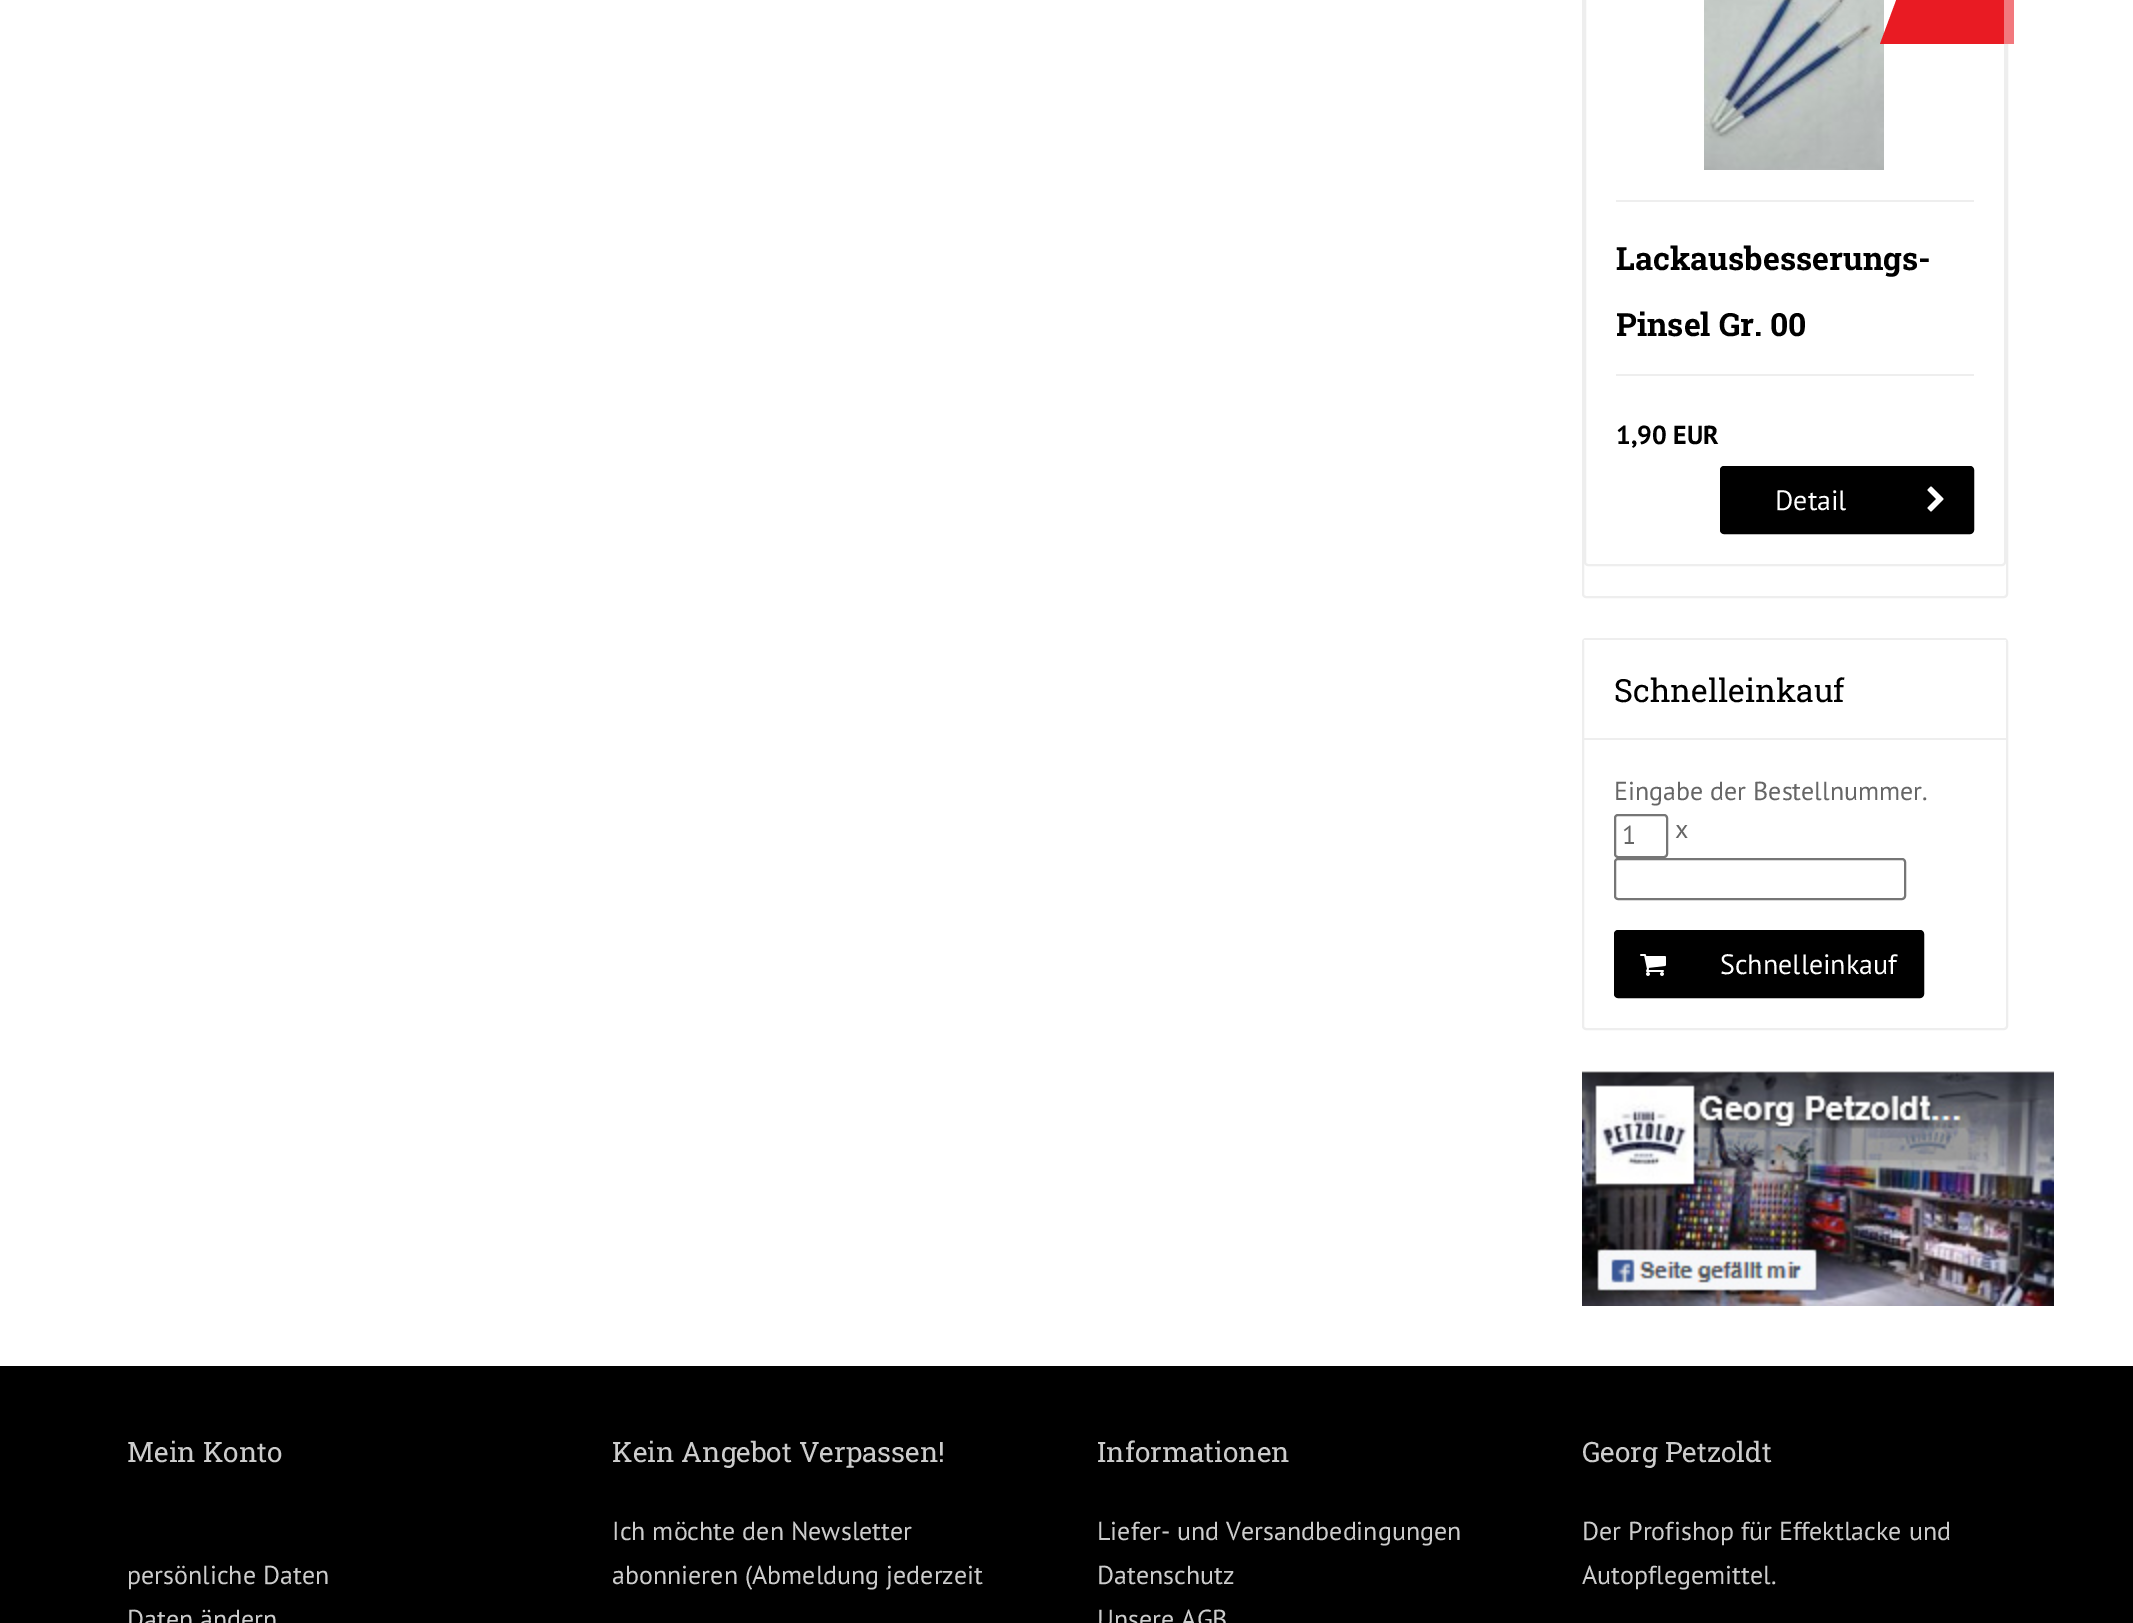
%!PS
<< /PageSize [2133 1623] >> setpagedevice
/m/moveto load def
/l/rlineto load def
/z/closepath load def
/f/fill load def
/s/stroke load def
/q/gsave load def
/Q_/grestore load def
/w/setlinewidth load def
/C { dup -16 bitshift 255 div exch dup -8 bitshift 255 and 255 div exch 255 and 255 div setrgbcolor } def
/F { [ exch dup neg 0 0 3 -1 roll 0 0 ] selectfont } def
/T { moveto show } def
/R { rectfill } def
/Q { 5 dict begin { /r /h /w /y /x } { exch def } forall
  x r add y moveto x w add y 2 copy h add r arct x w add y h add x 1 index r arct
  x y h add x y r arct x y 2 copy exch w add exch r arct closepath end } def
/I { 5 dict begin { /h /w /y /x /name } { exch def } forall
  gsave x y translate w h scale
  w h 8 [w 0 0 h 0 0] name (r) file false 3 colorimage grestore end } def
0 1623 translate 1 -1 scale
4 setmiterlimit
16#FFFFFF C
0 0 2133 1623 R
16#EEEEEE C
2 w
1583 -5 424 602 3 Q s
1585 -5 420 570 3 Q s
1616 200 358 2 R
(1.rgb) 1704 0 180 170 I
16#E91B23 C
1900 0 104 44 R
16#F2787D C
2004 0 10 44 R
16#E91B23 C
1900 44 m -20 0 l 20 -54 l z f
/RobotoSlab-Bold 32 F
16#000000 C
(Lackausbesserungs-) 1616 270 T
(Pinsel Gr. 00) 1616 336 T
16#EEEEEE C
1616 374 358 2 R
/PTSans-Bold 26 F
16#000000 C
(1,90 EUR) 1616 444 T
1721 467 252 66 3 Q q f Q_
s
/PTSans-Regular 28 F
16#FFFFFF C
(Detail) 1775 510 T
(2.rgb) 1927 486 17 26 I
16#EEEEEE C
1583 639 424 390 3 Q s
16#FFFFFF C
1584 640 422 1 R
16#EEEEEE C
1584 738 422 2 R
/RobotoSlab-Regular 32 F
16#000000 C
(Schnelleinkauf) 1614 702 T
/PTSans-Regular 26 F
16#666666 C
(Eingabe der Bestellnummer.) 1614 800 T
16#767676 C
1615 815 52 42 3 Q s
16#666666 C
(1) 1622 844 T
(x) 1675 838 T
16#767676 C
1615 859 290 40 3 Q s
16#000000 C
1615 931 308 66 3 Q q f Q_
s
(3.rgb) 1640 954 26 22 I
/PTSans-Regular 28 F
16#FFFFFF C
(Schnelleinkauf) 1720 974 T
(4.rgb) 1582 1071 472 235 I
16#000000 C
0 1366 2133 257 R
/RobotoSlab-Regular 28 F
16#CCCCCC C
(Mein Konto) 127 1462 T
/PTSans-Regular 26 F
(persönliche Daten) 127 1584 T
(Daten ändern) 127 1628 T
/RobotoSlab-Regular 28 F
(Kein Angebot Verpassen!) 612 1462 T
/PTSans-Regular 26 F
(Ich möchte den Newsletter) 612 1540 T
(abonnieren \(Abmeldung jederzeit) 612 1584 T
/RobotoSlab-Regular 28 F
(Informationen) 1097 1462 T
/PTSans-Regular 26 F
(Liefer- und Versandbedingungen) 1097 1540 T
(Datenschutz) 1097 1584 T
(Unsere AGB) 1097 1628 T
/RobotoSlab-Regular 28 F
(Georg Petzoldt) 1582 1462 T
/PTSans-Regular 26 F
(Der Profishop für Effektlacke und) 1582 1540 T
(Autopflegemittel.) 1582 1584 T
showpage
